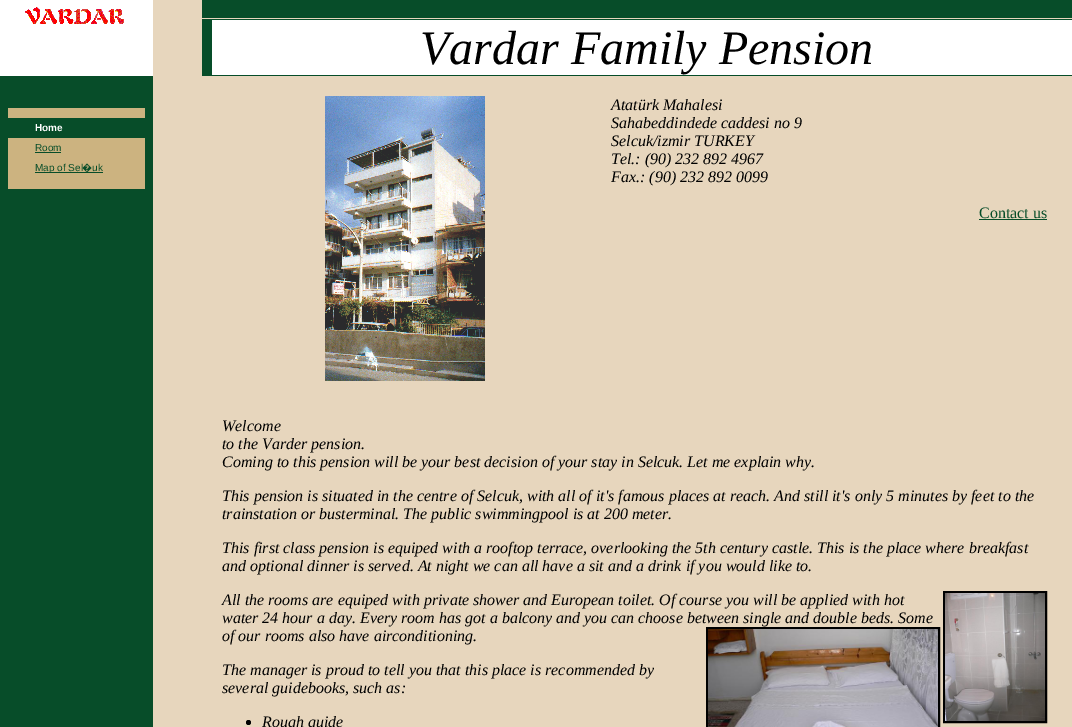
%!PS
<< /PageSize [1072 727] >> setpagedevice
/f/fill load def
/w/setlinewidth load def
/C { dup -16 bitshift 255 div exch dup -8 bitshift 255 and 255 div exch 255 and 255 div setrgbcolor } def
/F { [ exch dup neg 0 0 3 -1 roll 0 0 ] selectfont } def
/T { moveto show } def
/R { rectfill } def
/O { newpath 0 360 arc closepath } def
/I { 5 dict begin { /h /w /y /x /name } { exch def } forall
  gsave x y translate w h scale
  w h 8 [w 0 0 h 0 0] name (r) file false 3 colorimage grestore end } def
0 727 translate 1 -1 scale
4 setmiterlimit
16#E7D6BD C
0 0 1072 727 R
16#FFFFFF C
0 0 153 76 R
(1.rgb) 25 7 99 17 I
16#074D29 C
202 0 870 18 R
202 19 870 1 R
202 20 10 55 R
16#FFFFFF C
212 20 860 55 R
/LiberationSerif-Italic 48 F
16#000000 C
(Vardar Family Pension) 420 64 T
16#074D29 C
202 75 870 1 R
0 76 153 651 R
16#CCB380 C
8 108 137 81 R
16#074D29 C
8 118 137 20 R
/LiberationSans-Bold 10 F
16#FFFFFF C
(Home) 35 131 T
/LiberationSans-Regular 10 F
16#074D29 C
(Room) 35 151 T
35 152 26 1 R
35 172 68 1 R
(Map of Sel) 35 171 T
/NotoSans-Regular 10 F
(�) 82 171 T
/LiberationSans-Regular 10 F
(uk) 92 171 T
(2.rgb) 325 96 160 285 I
/LiberationSerif-Italic 16 F
16#000000 C
(Atatürk Mahalesi) 611 110 T
(Sahabeddindede caddesi no 9) 611 128 T
(Selcuk/izmir TURKEY) 611 146 T
(Tel.: \(90\) 232 892 4967) 611 164 T
(Fax.: \(90\) 232 892 0099) 611 182 T
/LiberationSerif-Regular 16 F
16#074D29 C
(Contact us) 979 218 T
979 219 68 1 R
/LiberationSerif-Italic 16 F
16#000000 C
(Welcome) 222 431 T
(to the Varder pension.) 222 449 T
(Coming to this pension will be your best decision of your stay in Selcuk. Let me explain why.) 222 467 T
(This pension is situated in the centre of Selcuk, with all of it's famous places at reach. And still it's only 5 minutes by feet to the) 222 501 T
(trainstation or busterminal. The public swimmingpool is at 200 meter.) 222 519 T
(This first class pension is equiped with a rooftop terrace, overlooking the 5th century castle. This is the place where breakfast) 222 553 T
(and optional dinner is served. At night we can all have a sit and a drink if you would like to.) 222 571 T
(All the rooms are equiped with private shower and European toilet. Of course you will be applied with hot) 222 605 T
2 w
944 592 102 130 rectstroke
(3.rgb) 945 593 100 128 I
(water 24 hour a day. Every room has got a balcony and you can choose between single and double beds. Some) 222 623 T
(of our rooms also have airconditioning.) 222 641 T
707 628 232 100 rectstroke
(4.rgb) 708 629 230 98 I
(The manager is proud to tell you that this place is recommended by) 222 675 T
(several guidebooks, such as:) 222 693 T
248.5 722.5 2.5 O f
(Rough guide) 262 727 T
showpage
